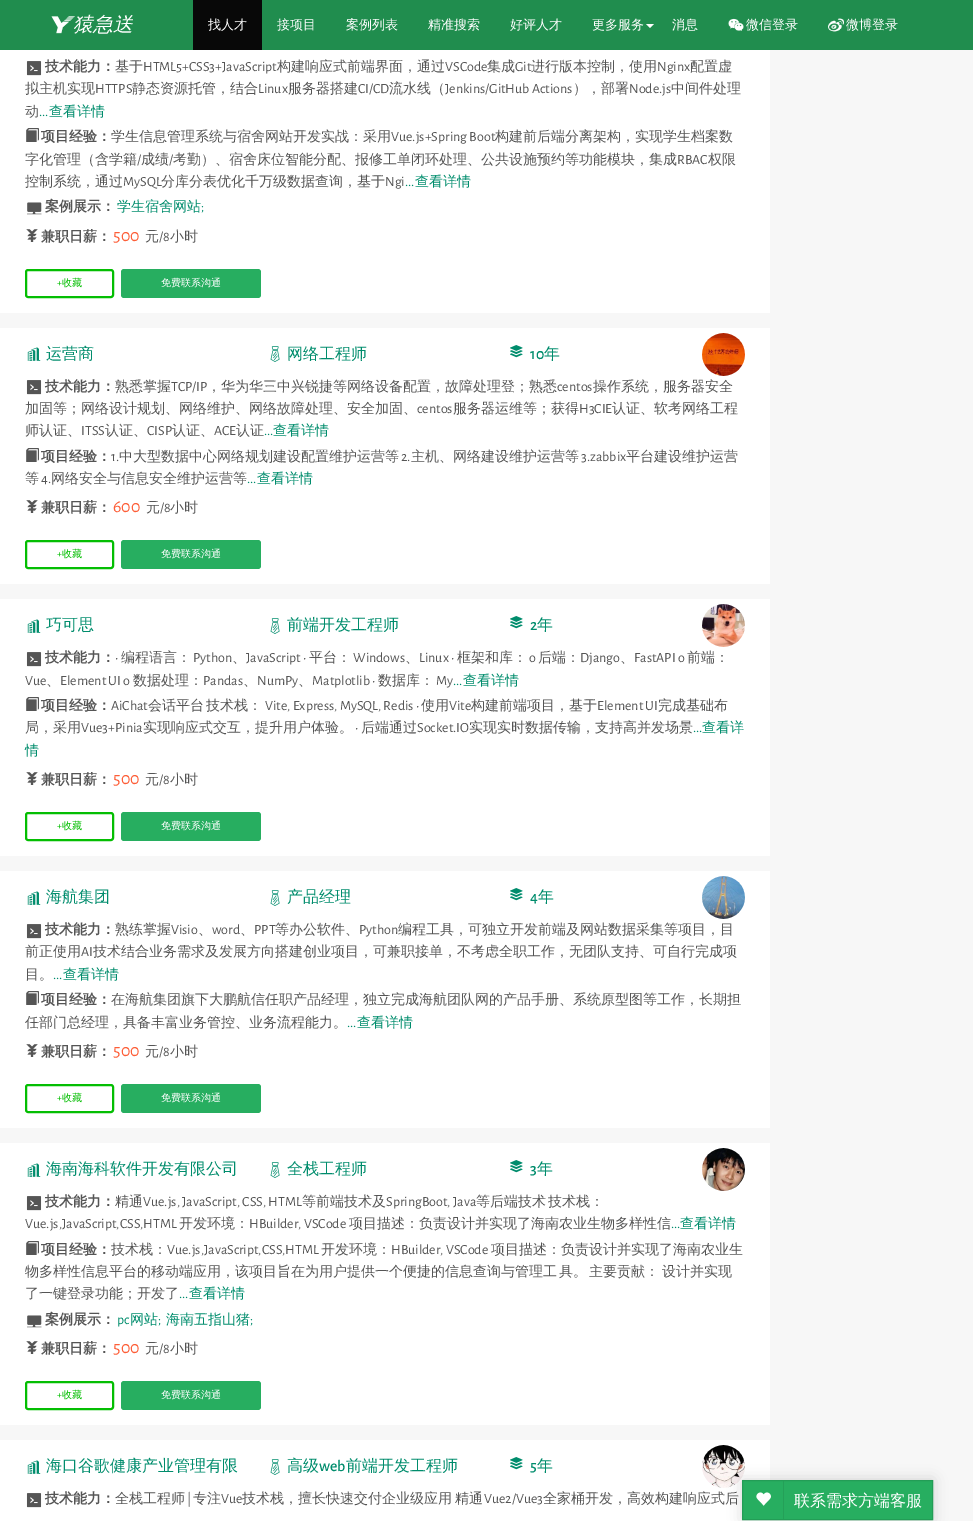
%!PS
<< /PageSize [973 1521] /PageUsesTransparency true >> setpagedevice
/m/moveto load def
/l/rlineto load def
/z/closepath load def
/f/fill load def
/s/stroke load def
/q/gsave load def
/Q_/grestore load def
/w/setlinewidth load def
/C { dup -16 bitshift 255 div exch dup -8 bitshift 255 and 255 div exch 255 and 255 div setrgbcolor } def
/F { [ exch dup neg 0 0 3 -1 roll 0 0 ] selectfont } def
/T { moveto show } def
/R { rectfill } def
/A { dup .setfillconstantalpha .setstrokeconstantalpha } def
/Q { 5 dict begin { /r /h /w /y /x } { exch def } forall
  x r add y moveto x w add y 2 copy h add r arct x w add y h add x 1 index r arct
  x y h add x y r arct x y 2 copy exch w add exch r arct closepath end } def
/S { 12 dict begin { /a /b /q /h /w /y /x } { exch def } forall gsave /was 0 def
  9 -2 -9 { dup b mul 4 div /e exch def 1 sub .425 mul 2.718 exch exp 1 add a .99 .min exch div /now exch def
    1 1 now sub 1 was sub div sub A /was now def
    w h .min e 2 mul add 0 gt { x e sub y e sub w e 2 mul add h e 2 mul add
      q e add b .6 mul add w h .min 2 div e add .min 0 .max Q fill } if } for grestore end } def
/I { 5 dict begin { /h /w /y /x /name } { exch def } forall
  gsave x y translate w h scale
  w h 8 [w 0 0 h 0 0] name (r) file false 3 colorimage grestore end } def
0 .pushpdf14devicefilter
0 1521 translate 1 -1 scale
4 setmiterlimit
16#F7F7F7 C
0 0 973 1521 R
16#208D4E C
0 0 973 50 R
(1.rgb) 51 16 24 18 I
/WenQuanYiZenHei-MediumItalic 20 F
16#FFFFFF C
(猿急送) 73 31 T
16#080808 C
193 0 69 50 R
/WenQuanYiZenHei-Medium 13 F
16#FFFFFF C
(找人才) 208 29 T
(接项目) 277 29 T
(案例列表) 346 29 T
(精准搜索) 428 29 T
(好评人才) 510 29 T
(更多服务) 592 29 T
646 24 m 8 0 l -4 4 l z f
(消息) 672 29 T
(2.rgb) 728 18 16 13 I
(微信登录) 746 29 T
(3.rgb) 828 18 16 14 I
(微博登录) 846 29 T
0 50 770 263 R
(4.rgb) 26 61 16 15 I
/WenQuanYiZenHei-Bold 14 F
16#555555 C
(技术能力：) 45 71 T
/WenQuanYiZenHei-Medium 14 F
(基于) 115 71 T
/AlegreyaSans-Regular 14 F
(HTML5+CSS3+JavaScript) 143 71 T
/WenQuanYiZenHei-Medium 14 F
(构建响应式前端界面，通过) 277 71 T
/AlegreyaSans-Regular 14 F
(VSCode) 445 71 T
/WenQuanYiZenHei-Medium 14 F
(集成) 487 71 T
/AlegreyaSans-Regular 14 F
(Git) 515 71 T
/WenQuanYiZenHei-Medium 14 F
(进行版本控制，使用) 531 71 T
/AlegreyaSans-Regular 14 F
(Nginx) 657 71 T
/WenQuanYiZenHei-Medium 14 F
(配置虚) 690 71 T
(拟主机实现) 25 93 T
/AlegreyaSans-Regular 14 F
(HTTPS) 95 93 T
/WenQuanYiZenHei-Medium 14 F
(静态资源托管，结合) 132 93 T
/AlegreyaSans-Regular 14 F
(Linux) 258 93 T
/WenQuanYiZenHei-Medium 14 F
(服务器搭建) 288 93 T
/AlegreyaSans-Regular 14 F
(CI/CD) 358 93 T
/WenQuanYiZenHei-Medium 14 F
(流水线（) 389 93 T
/AlegreyaSans-Regular 14 F
(Jenkins/GitHub Actions) 445 93 T
/WenQuanYiZenHei-Medium 14 F
(），部署) 573 93 T
/AlegreyaSans-Regular 14 F
(Node.js) 629 93 T
/WenQuanYiZenHei-Medium 14 F
(中间件处理) 671 93 T
(动) 25 116 T
/AlegreyaSans-Regular 14 F
16#008C6C C
(...) 39 116 T
/WenQuanYiZenHei-Medium 14 F
(查看详情) 49 116 T
(5.rgb) 26 128 13 14 I
/WenQuanYiZenHei-Bold 14 F
16#555555 C
(项目经验：) 41 141 T
/WenQuanYiZenHei-Medium 14 F
(学生信息管理系统与宿舍网站开发实战：采用) 111 141 T
/AlegreyaSans-Regular 14 F
(Vue.js+Spring Boot) 391 141 T
/WenQuanYiZenHei-Medium 14 F
(构建前后端分离架构，实现学生档案数) 495 141 T
(字化管理（含学籍) 25 164 T
/AlegreyaSans-Regular 14 F
(/) 137 164 T
/WenQuanYiZenHei-Medium 14 F
(成绩) 141 164 T
/AlegreyaSans-Regular 14 F
(/) 169 164 T
/WenQuanYiZenHei-Medium 14 F
(考勤）、宿舍床位智能分配、报修工单闭环处理、公共设施预约等功能模块，集成) 173 164 T
/AlegreyaSans-Regular 14 F
(RBAC) 677 164 T
/WenQuanYiZenHei-Medium 14 F
(权限) 708 164 T
(控制系统，通过) 25 186 T
/AlegreyaSans-Regular 14 F
(MySQL) 123 186 T
/WenQuanYiZenHei-Medium 14 F
(分库分表优化千万级数据查询，基于) 161 186 T
/AlegreyaSans-Regular 14 F
(Ngi) 385 186 T
16#008C6C C
(...) 405 186 T
/WenQuanYiZenHei-Medium 14 F
(查看详情) 415 186 T
(6.rgb) 27 202 15 13 I
/WenQuanYiZenHei-Bold 14 F
16#555555 C
(案例展示：) 45 211 T
/WenQuanYiZenHei-Medium 14 F
16#008C6C C
(学生宿舍网站) 117 211 T
/AlegreyaSans-Regular 14 F
(;) 201 211 T
(7.rgb) 26 229 12 13 I
/WenQuanYiZenHei-Bold 14 F
16#555555 C
(兼职日薪：) 41 241 T
/AlegreyaSans-Regular 18 F
16#FD5F39 C
(500) 113 241 T
/WenQuanYiZenHei-Medium 14 F
16#555555 C
(元) 145 241 T
/AlegreyaSans-Regular 14 F
(/8) 159 241 T
/WenQuanYiZenHei-Medium 14 F
(小时) 170 241 T
16#04BE02 C
2 w
26 270 87 27 2 Q s
/AlegreyaSans-Regular 10 F
(+) 57 286 T
/WenQuanYiZenHei-Medium 10 F
(收藏) 62 286 T
16#27AE60 C
121 269 140 29 3 Q f
16#FFFFFF C
(免费联系沟通) 161 286 T
0 328 770 256 R
(8.rgb) 27 347 14 14 I
/WenQuanYiZenHei-Medium 16 F
16#008C6C C
(运营商) 46 359 T
(9.rgb) 270 346 10 16 I
(网络工程师) 287 359 T
(10.rgb) 510 345 13 13 I
/AlegreyaSans-Medium 16 F
(10) 530 359 T
/WenQuanYiZenHei-Medium 16 F
(年) 544 359 T
(11.rgb) 702 333 43 43 I
(4.rgb) 26 380 16 15 I
/WenQuanYiZenHei-Bold 14 F
16#555555 C
(技术能力：) 45 391 T
/WenQuanYiZenHei-Medium 14 F
(熟悉掌握) 115 391 T
/AlegreyaSans-Regular 14 F
(TCP/IP) 171 391 T
/WenQuanYiZenHei-Medium 14 F
(，华为华三中兴锐捷等网络设备配置，故障处理登；熟悉) 207 391 T
/AlegreyaSans-Regular 14 F
(centos) 557 391 T
/WenQuanYiZenHei-Medium 14 F
(操作系统，服务器安全) 593 391 T
(加固等；网络设计规划、网络维护、网络故障处理、安全加固、) 25 413 T
/AlegreyaSans-Regular 14 F
(centos) 417 413 T
/WenQuanYiZenHei-Medium 14 F
(服务器运维等；获得) 453 413 T
/AlegreyaSans-Regular 14 F
(H3CIE) 579 413 T
/WenQuanYiZenHei-Medium 14 F
(认证、软考网络工程) 612 413 T
(师认证、) 25 435 T
/AlegreyaSans-Regular 14 F
(ITSS) 81 435 T
/WenQuanYiZenHei-Medium 14 F
(认证、) 105 435 T
/AlegreyaSans-Regular 14 F
(CISP) 147 435 T
/WenQuanYiZenHei-Medium 14 F
(认证、) 172 435 T
/AlegreyaSans-Regular 14 F
(ACE) 214 435 T
/WenQuanYiZenHei-Medium 14 F
(认证) 236 435 T
/AlegreyaSans-Regular 14 F
16#008C6C C
(...) 264 435 T
/WenQuanYiZenHei-Medium 14 F
(查看详情) 273 435 T
(5.rgb) 26 448 13 14 I
/WenQuanYiZenHei-Bold 14 F
16#555555 C
(项目经验：) 41 461 T
/AlegreyaSans-Regular 14 F
(1.) 111 461 T
/WenQuanYiZenHei-Medium 14 F
(中大型数据中心网络规划建设配置维护运营等) 119 461 T
/AlegreyaSans-Regular 14 F
(2.) 401 461 T
/WenQuanYiZenHei-Medium 14 F
(主机、网络建设维护运营等) 411 461 T
/AlegreyaSans-Regular 14 F
(3.zabbix) 581 461 T
/WenQuanYiZenHei-Medium 14 F
(平台建设维护运营) 626 461 T
(等) 25 483 T
/AlegreyaSans-Regular 14 F
(4.) 41 483 T
/WenQuanYiZenHei-Medium 14 F
(网络安全与信息安全维护运营等) 51 483 T
/AlegreyaSans-Regular 14 F
16#008C6C C
(...) 247 483 T
/WenQuanYiZenHei-Medium 14 F
(查看详情) 257 483 T
(7.rgb) 26 500 12 13 I
/WenQuanYiZenHei-Bold 14 F
16#555555 C
(兼职日薪：) 41 512 T
/AlegreyaSans-Regular 18 F
16#FD5F39 C
(600) 113 512 T
/WenQuanYiZenHei-Medium 14 F
16#555555 C
(元) 146 512 T
/AlegreyaSans-Regular 14 F
(/8) 160 512 T
/WenQuanYiZenHei-Medium 14 F
(小时) 170 512 T
16#04BE02 C
26 541 87 27 2 Q s
/AlegreyaSans-Regular 10 F
(+) 57 557 T
/WenQuanYiZenHei-Medium 10 F
(收藏) 62 557 T
16#27AE60 C
121 540 140 29 3 Q f
16#FFFFFF C
(免费联系沟通) 161 557 T
0 599 770 257 R
(8.rgb) 27 619 14 14 I
/WenQuanYiZenHei-Medium 16 F
16#008C6C C
(巧可思) 46 630 T
(9.rgb) 270 618 10 16 I
(前端开发工程师) 287 630 T
(10.rgb) 510 616 13 13 I
/AlegreyaSans-Medium 16 F
(2) 530 630 T
/WenQuanYiZenHei-Medium 16 F
(年) 537 630 T
(12.rgb) 702 604 43 43 I
(4.rgb) 26 652 16 15 I
/WenQuanYiZenHei-Bold 14 F
16#555555 C
(技术能力：) 45 662 T
/AlegreyaSans-Regular 14 F
(•) 115 662 T
/WenQuanYiZenHei-Medium 14 F
(编程语言：) 121 662 T
/AlegreyaSans-Regular 14 F
(Python) 193 662 T
(JavaScript •) 246 662 T
/WenQuanYiZenHei-Medium 14 F
(平台：) 309 662 T
/AlegreyaSans-Regular 14 F
(Windows) 353 662 T
(Linux •) 419 662 T
/WenQuanYiZenHei-Medium 14 F
(框架和库：) 457 662 T
/AlegreyaSans-Regular 14 F
(o) 529 662 T
/WenQuanYiZenHei-Medium 14 F
(后端：) 538 662 T
/AlegreyaSans-Regular 14 F
(Django) 580 662 T
(FastAPI o) 634 662 T
/WenQuanYiZenHei-Medium 14 F
(前端：) 687 662 T
(、) 232 662 T
(、) 405 662 T
(、) 620 662 T
/AlegreyaSans-Regular 14 F
(Vue) 25 685 T
/WenQuanYiZenHei-Medium 14 F
(、) 46 685 T
/AlegreyaSans-Regular 14 F
(Element UI o) 60 685 T
/WenQuanYiZenHei-Medium 14 F
(数据处理：) 133 685 T
/AlegreyaSans-Regular 14 F
(Pandas) 203 685 T
/WenQuanYiZenHei-Medium 14 F
(、) 243 685 T
/AlegreyaSans-Regular 14 F
(NumPy) 257 685 T
/WenQuanYiZenHei-Medium 14 F
(、) 298 685 T
/AlegreyaSans-Regular 14 F
(Matplotlib •) 312 685 T
/WenQuanYiZenHei-Medium 14 F
(数据库：) 378 685 T
/AlegreyaSans-Regular 14 F
(My) 436 685 T
16#008C6C C
(...) 453 685 T
/WenQuanYiZenHei-Medium 14 F
(查看详情) 463 685 T
(5.rgb) 26 697 13 14 I
/WenQuanYiZenHei-Bold 14 F
16#555555 C
(项目经验：) 41 710 T
/AlegreyaSans-Regular 14 F
(AiChat) 111 710 T
/WenQuanYiZenHei-Medium 14 F
(会话平台) 148 710 T
(技术栈：) 206 710 T
/AlegreyaSans-Regular 14 F
(Vite, Express, MySQL, Redis •) 265 710 T
/WenQuanYiZenHei-Medium 14 F
(使用) 421 710 T
/AlegreyaSans-Regular 14 F
(Vite) 449 710 T
/WenQuanYiZenHei-Medium 14 F
(构建前端项目，基于) 471 710 T
/AlegreyaSans-Regular 14 F
(Element UI) 597 710 T
/WenQuanYiZenHei-Medium 14 F
(完成基础布) 658 710 T
(局，采用) 25 732 T
/AlegreyaSans-Regular 14 F
(Vue3+Pinia) 81 732 T
/WenQuanYiZenHei-Medium 14 F
(实现响应式交互，提升用户体验。) 143 732 T
/AlegreyaSans-Regular 14 F
(•) 355 732 T
/WenQuanYiZenHei-Medium 14 F
(后端通过) 361 732 T
/AlegreyaSans-Regular 14 F
(Socket.IO) 417 732 T
/WenQuanYiZenHei-Medium 14 F
(实现实时数据传输，支持高并发场景) 469 732 T
16#008C6C C
(查看详) 702 732 T
/AlegreyaSans-Regular 14 F
(...) 693 732 T
/WenQuanYiZenHei-Medium 14 F
(情) 25 755 T
(7.rgb) 26 772 12 13 I
/WenQuanYiZenHei-Bold 14 F
16#555555 C
(兼职日薪：) 41 784 T
/AlegreyaSans-Regular 18 F
16#FD5F39 C
(500) 113 784 T
/WenQuanYiZenHei-Medium 14 F
16#555555 C
(元) 145 784 T
/AlegreyaSans-Regular 14 F
(/8) 159 784 T
/WenQuanYiZenHei-Medium 14 F
(小时) 170 784 T
16#04BE02 C
26 813 87 27 2 Q s
/AlegreyaSans-Regular 10 F
(+) 57 829 T
/WenQuanYiZenHei-Medium 10 F
(收藏) 62 829 T
16#27AE60 C
121 812 140 29 3 Q f
16#FFFFFF C
(免费联系沟通) 161 829 T
0 871 770 257 R
(8.rgb) 27 891 14 14 I
/WenQuanYiZenHei-Medium 16 F
16#008C6C C
(海航集团) 46 902 T
(9.rgb) 270 890 10 16 I
(产品经理) 287 902 T
(10.rgb) 510 888 13 13 I
/AlegreyaSans-Medium 16 F
(4) 530 902 T
/WenQuanYiZenHei-Medium 16 F
(年) 538 902 T
(13.rgb) 702 876 43 43 I
(4.rgb) 26 924 16 15 I
/WenQuanYiZenHei-Bold 14 F
16#555555 C
(技术能力：) 45 934 T
/WenQuanYiZenHei-Medium 14 F
(熟练掌握) 115 934 T
/AlegreyaSans-Regular 14 F
(Visio) 171 934 T
/WenQuanYiZenHei-Medium 14 F
(、) 198 934 T
/AlegreyaSans-Regular 14 F
(word) 212 934 T
/WenQuanYiZenHei-Medium 14 F
(、) 240 934 T
/AlegreyaSans-Regular 14 F
(PPT) 254 934 T
/WenQuanYiZenHei-Medium 14 F
(等办公软件、) 275 934 T
/AlegreyaSans-Regular 14 F
(Python) 359 934 T
/WenQuanYiZenHei-Medium 14 F
(编程工具，可独立开发前端及网站数据采集等项目，目) 398 934 T
(前正使用) 25 956 T
/AlegreyaSans-Regular 14 F
(AI) 81 956 T
/WenQuanYiZenHei-Medium 14 F
(技术结合业务需求及发展方向搭建创业项目，可兼职接单，不考虑全职工作，无团队支持、可自行完成项) 93 956 T
(目。) 25 979 T
/AlegreyaSans-Regular 14 F
16#008C6C C
(...) 53 979 T
/WenQuanYiZenHei-Medium 14 F
(查看详情) 63 979 T
(5.rgb) 26 991 13 14 I
/WenQuanYiZenHei-Bold 14 F
16#555555 C
(项目经验：) 41 1004 T
/WenQuanYiZenHei-Medium 14 F
(在海航集团旗下大鹏航信任职产品经理，独立完成海航团队网的产品手册、系统原型图等工作，长期担) 111 1004 T
(任部门总经理，具备丰富业务管控、业务流程能力。) 25 1027 T
/AlegreyaSans-Regular 14 F
16#008C6C C
(...) 347 1027 T
/WenQuanYiZenHei-Medium 14 F
(查看详情) 357 1027 T
(7.rgb) 26 1044 12 13 I
/WenQuanYiZenHei-Bold 14 F
16#555555 C
(兼职日薪：) 41 1056 T
/AlegreyaSans-Regular 18 F
16#FD5F39 C
(500) 113 1056 T
/WenQuanYiZenHei-Medium 14 F
16#555555 C
(元) 145 1056 T
/AlegreyaSans-Regular 14 F
(/8) 159 1056 T
/WenQuanYiZenHei-Medium 14 F
(小时) 170 1056 T
16#04BE02 C
26 1085 87 27 2 Q s
/AlegreyaSans-Regular 10 F
(+) 57 1101 T
/WenQuanYiZenHei-Medium 10 F
(收藏) 62 1101 T
16#27AE60 C
121 1084 140 29 3 Q f
16#FFFFFF C
(免费联系沟通) 161 1101 T
0 1143 770 282 R
(8.rgb) 27 1163 14 14 I
/WenQuanYiZenHei-Medium 16 F
16#008C6C C
(海南海科软件开发有限公司) 46 1174 T
(9.rgb) 270 1162 10 16 I
(全栈工程师) 287 1174 T
(10.rgb) 510 1160 13 13 I
/AlegreyaSans-Medium 16 F
(3) 530 1174 T
/WenQuanYiZenHei-Medium 16 F
(年) 537 1174 T
(14.rgb) 702 1148 43 43 I
(4.rgb) 26 1196 16 15 I
/WenQuanYiZenHei-Bold 14 F
16#555555 C
(技术能力：) 45 1206 T
/WenQuanYiZenHei-Medium 14 F
(精通) 115 1206 T
/AlegreyaSans-Regular 14 F
(Vue.js, JavaScript, CSS, HTML) 143 1206 T
/WenQuanYiZenHei-Medium 14 F
(等前端技术及) 302 1206 T
/AlegreyaSans-Regular 14 F
(SpringBoot, Java) 386 1206 T
/WenQuanYiZenHei-Medium 14 F
(等后端技术) 476 1206 T
(技术栈：) 548 1206 T
/AlegreyaSans-Regular 14 F
(Vue.js,JavaScript,CSS,HTML) 25 1228 T
/WenQuanYiZenHei-Medium 14 F
(开发环境：) 179 1228 T
/AlegreyaSans-Regular 14 F
(HBuilder, VSCode) 249 1228 T
/WenQuanYiZenHei-Medium 14 F
(项目描述：负责设计并实现了海南农业生物多样性信) 349 1228 T
/AlegreyaSans-Regular 14 F
16#008C6C C
(...) 671 1228 T
/WenQuanYiZenHei-Medium 14 F
(查看详情) 680 1228 T
(5.rgb) 26 1241 13 14 I
/WenQuanYiZenHei-Bold 14 F
16#555555 C
(项目经验：) 41 1254 T
/WenQuanYiZenHei-Medium 14 F
(技术栈：) 111 1254 T
/AlegreyaSans-Regular 14 F
(Vue.js,JavaScript,CSS,HTML) 167 1254 T
/WenQuanYiZenHei-Medium 14 F
(开发环境：) 321 1254 T
/AlegreyaSans-Regular 14 F
(HBuilder, VSCode) 391 1254 T
/WenQuanYiZenHei-Medium 14 F
(项目描述：负责设计并实现了海南农业生) 491 1254 T
25 1276 m -2 0 32 (物多样性信息平台的移动端应用，该项目旨在为用户提供一个便捷的信息查询与管理工 具。 主要贡献： 设计并实现) widthshow
(了一键登录功能；开发了) 25 1298 T
/AlegreyaSans-Regular 14 F
16#008C6C C
(...) 179 1298 T
/WenQuanYiZenHei-Medium 14 F
(查看详情) 189 1298 T
(6.rgb) 27 1315 15 13 I
/WenQuanYiZenHei-Bold 14 F
16#555555 C
(案例展示：) 45 1324 T
/AlegreyaSans-Regular 14 F
16#008C6C C
(pc) 117 1324 T
/WenQuanYiZenHei-Medium 14 F
(网站) 130 1324 T
/AlegreyaSans-Regular 14 F
(;) 158 1324 T
/WenQuanYiZenHei-Medium 14 F
(海南五指山猪) 166 1324 T
/AlegreyaSans-Regular 14 F
(;) 250 1324 T
(7.rgb) 26 1341 12 13 I
/WenQuanYiZenHei-Bold 14 F
16#555555 C
(兼职日薪：) 41 1353 T
/AlegreyaSans-Regular 18 F
16#FD5F39 C
(500) 113 1353 T
/WenQuanYiZenHei-Medium 14 F
16#555555 C
(元) 145 1353 T
/AlegreyaSans-Regular 14 F
(/8) 159 1353 T
/WenQuanYiZenHei-Medium 14 F
(小时) 170 1353 T
16#04BE02 C
26 1382 87 27 2 Q s
/AlegreyaSans-Regular 10 F
(+) 57 1398 T
/WenQuanYiZenHei-Medium 10 F
(收藏) 62 1398 T
16#27AE60 C
121 1381 140 29 3 Q f
16#FFFFFF C
(免费联系沟通) 161 1398 T
0 1440 770 81 R
(8.rgb) 27 1460 14 14 I
/WenQuanYiZenHei-Medium 16 F
16#008C6C C
(海口谷歌健康产业管理有限) 46 1471 T
(9.rgb) 270 1459 10 16 I
(高级) 287 1471 T
/AlegreyaSans-Medium 16 F
(web) 319 1471 T
/WenQuanYiZenHei-Medium 16 F
(前端开发工程师) 346 1471 T
(10.rgb) 510 1457 13 13 I
/AlegreyaSans-Medium 16 F
(5) 530 1471 T
/WenQuanYiZenHei-Medium 16 F
(年) 537 1471 T
(15.rgb) 702 1445 43 43 I
(4.rgb) 26 1493 16 15 I
/WenQuanYiZenHei-Bold 14 F
16#555555 C
(技术能力：) 45 1503 T
/WenQuanYiZenHei-Medium 14 F
(全栈工程师) 115 1503 T
/AlegreyaSans-Regular 14 F
(|) 187 1503 T
/WenQuanYiZenHei-Medium 14 F
(专注) 193 1503 T
/AlegreyaSans-Regular 14 F
(Vue) 221 1503 T
/WenQuanYiZenHei-Medium 14 F
242 1503 m -1 0 32 (技术栈，擅长快速交付企业级应用 精通) widthshow
/AlegreyaSans-Regular 14 F
(Vue2/Vue3) 484 1503 T
/WenQuanYiZenHei-Medium 14 F
(全家桶开发，高效构建响应式后) 543 1503 T
16#000000 C
742 1480 191 40 0 7 .16 S
16#27AE60 C
742.5 1480.5 m 190 0 l 0 39 l -190 0 l z q f Q_
16#239D56 C
1 w
s
(16.rgb) 756 1492 15 14 I
16#24A058 C
783 1481 1 38 R
/WenQuanYiZenHei-Medium 16 F
16#FFFFFF C
(联系需求方端客服) 794 1506 T
.poppdf14devicefilter showpage
